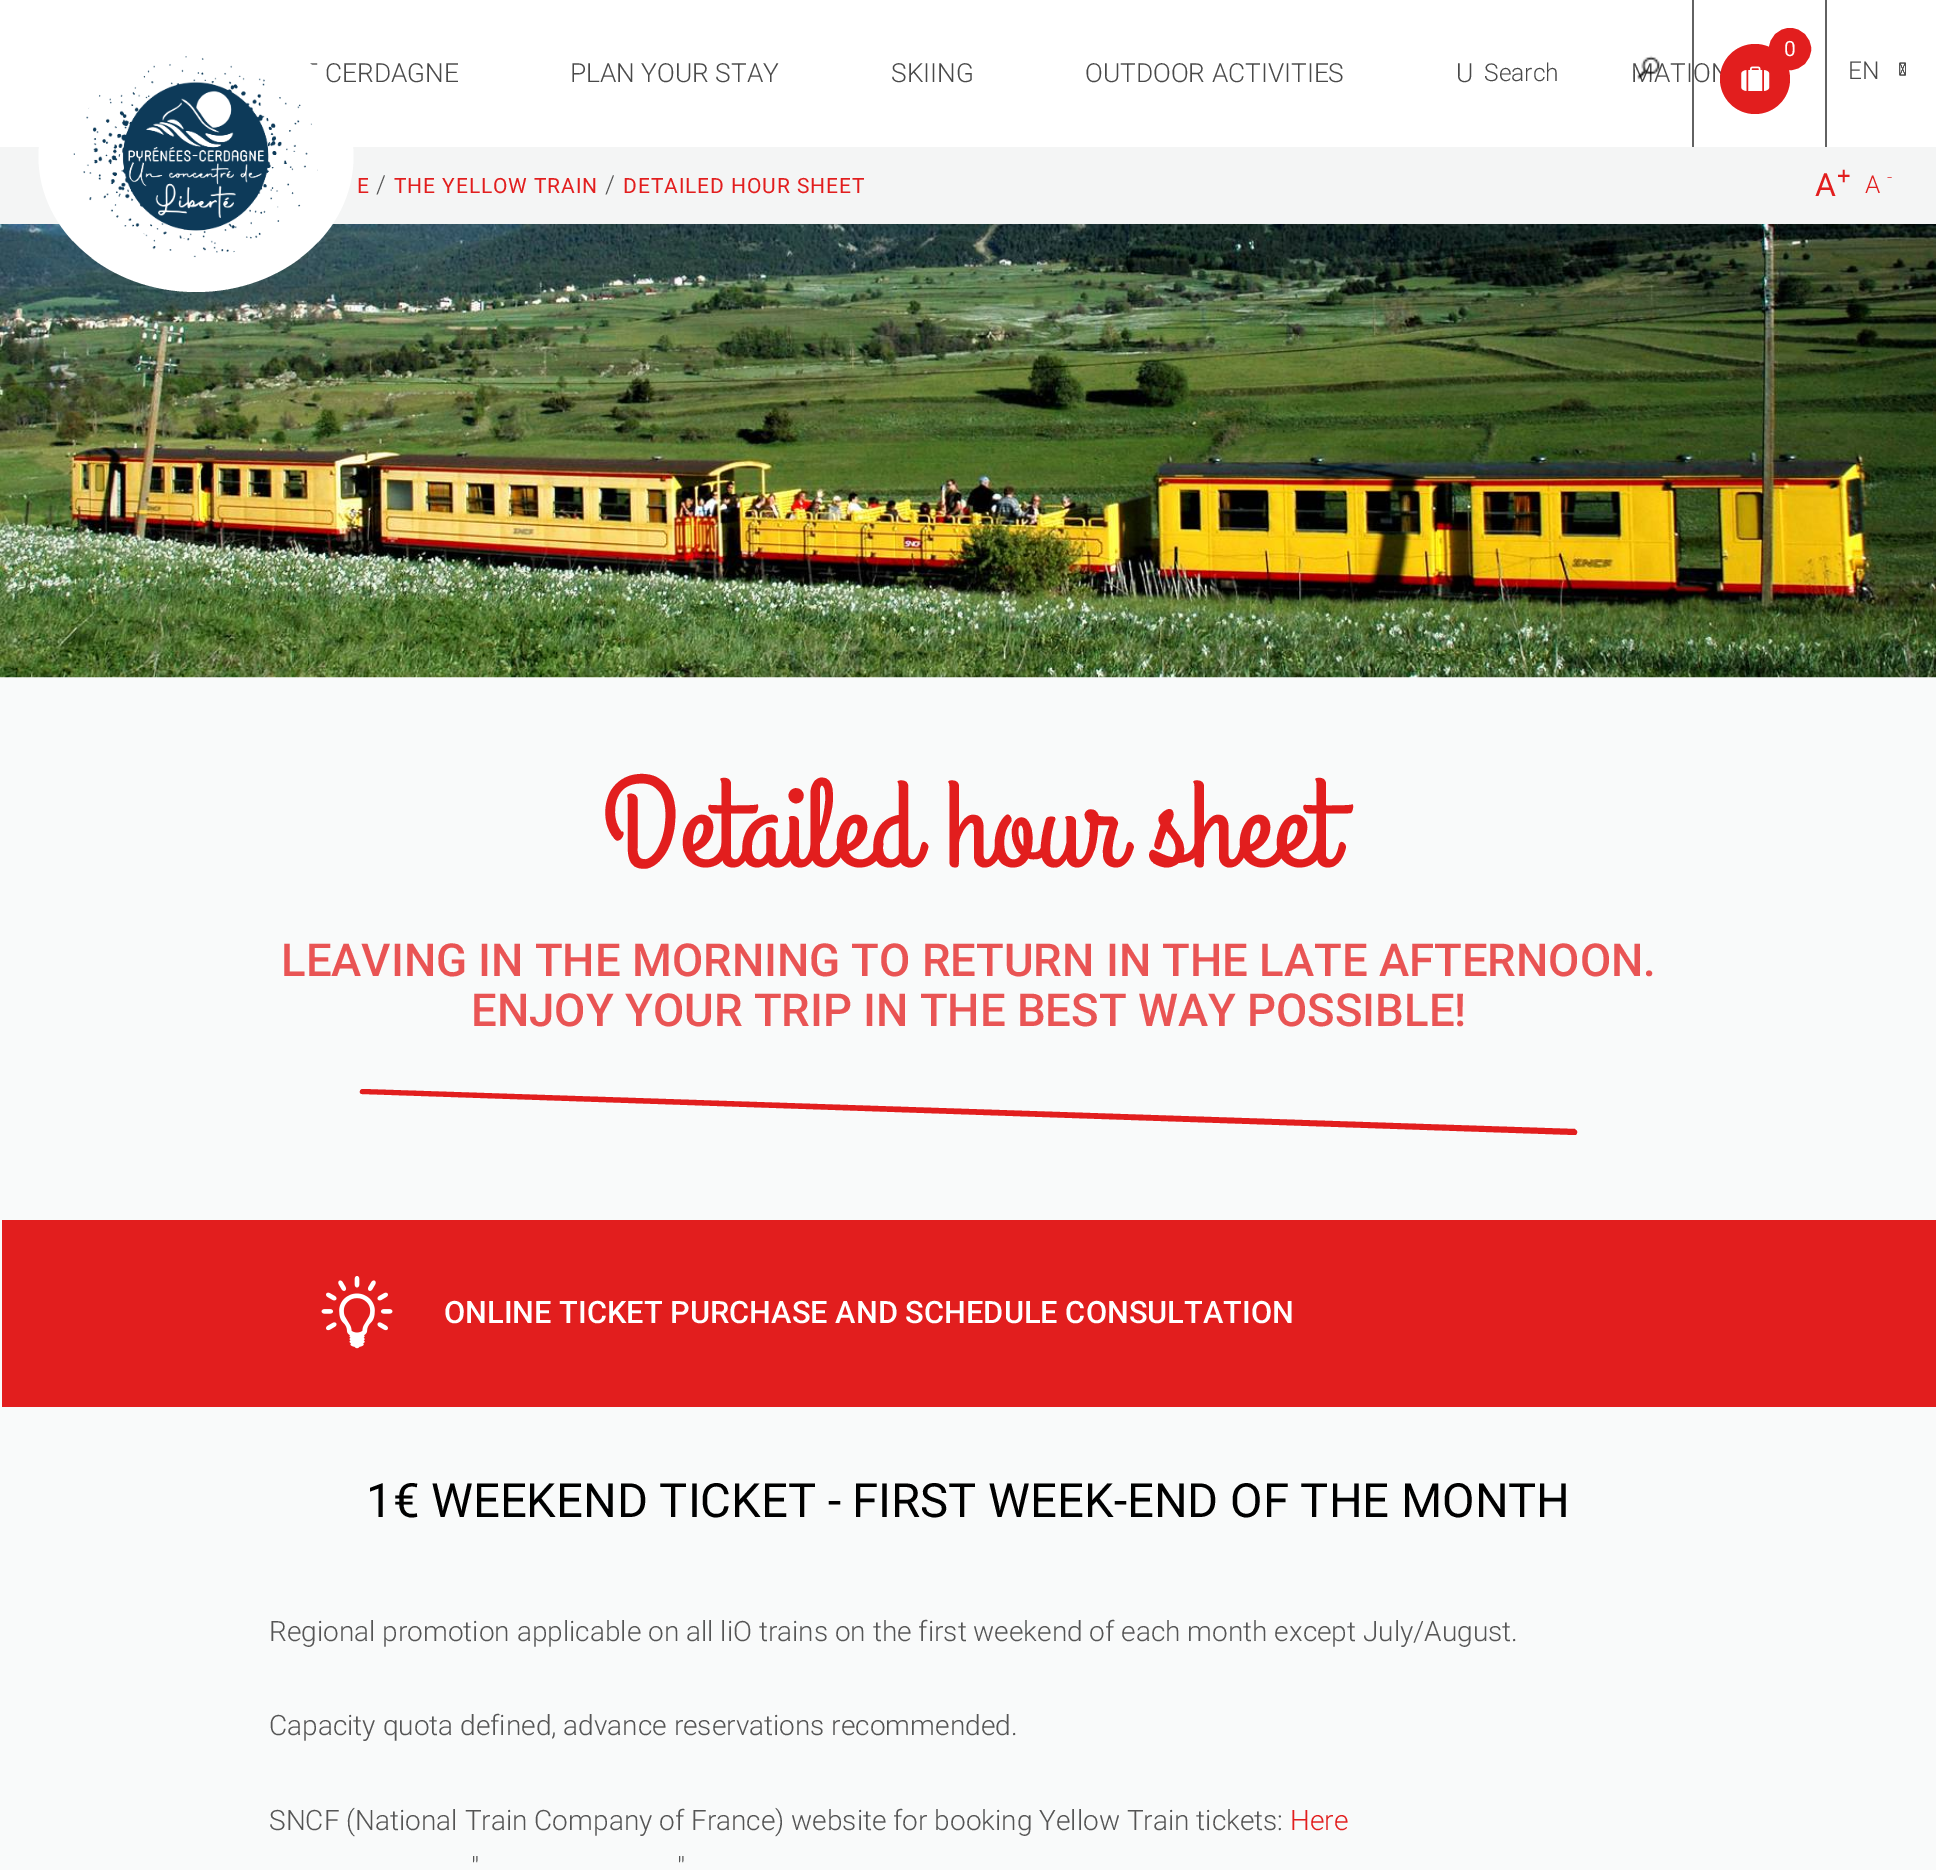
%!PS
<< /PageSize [1936 1870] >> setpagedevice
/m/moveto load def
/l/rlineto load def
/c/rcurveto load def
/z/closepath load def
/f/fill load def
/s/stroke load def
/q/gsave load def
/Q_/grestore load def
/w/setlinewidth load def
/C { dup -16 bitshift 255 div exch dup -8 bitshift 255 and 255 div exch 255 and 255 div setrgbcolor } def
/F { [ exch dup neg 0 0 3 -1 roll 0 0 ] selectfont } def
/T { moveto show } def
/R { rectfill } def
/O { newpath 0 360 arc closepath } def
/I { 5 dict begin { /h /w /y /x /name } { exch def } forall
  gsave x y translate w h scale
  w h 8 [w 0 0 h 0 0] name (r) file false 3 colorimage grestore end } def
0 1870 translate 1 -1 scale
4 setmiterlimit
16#FFFFFF C
0 0 1936 1870 R
/Roboto-Light 26.25 F
16#494949 C
(MATION) 1631 82 T
16#626262 C
1692 0 2 147 R
16#E21E1E C
1755 79 35 O f
(1.rgb) 1741 66 29 25 I
1790 49 20 O q f Q_
2 w
s
/Roboto-Regular 21 F
16#FFFFFF C
(0) 1784 56 T
/Roboto-Light 24.5 F
16#494949 C
(Search) 1484 81 T
(2.rgb) 1637 55 23 25 I
16#626262 C
1825 0 2 147 R
16#494949 C
(EN) 1848 79 T
(4.rgb) 1899 62 7 14 I
(5.rgb) 1899 62 7 14 I
(3.rgb) 1899 62 7 14 I
(6.rgb) 1899 62 7 14 I
(7.rgb) 1899 62 7 14 I
/Roboto-Light 26.25 F
(CERDAGNE) 325 82 T
16#F4F5F5 C
0 147 1936 77 R
16#F9FAFA C
0 677 1936 1193 R
(10.rgb) 0 224 1936 454 I
16#FFFFFF C
196 21 m 87 0 157.5 60.5 157.5 135.5 c 0 75 -70.5 135.5 -157.5 135.5 c -87 0 -157.5 -60.5 -157.5 -135.5 c 0 -75 70.5 -135.5 157.5 -135.5 c z f
(8.rgb) 73 56 245 202 I
16#494949 C
(PLAN YOUR STAY) 570 82 T
(SKIING) 891 82 T
(OUTDOOR ACTIVITIES) 1085 82 T
(U) 1456 82 T
/Roboto-Regular 21 F
16#E21E1E C
357 193 m .9 0 (E) ashow
/Roboto-Light 25 F
16#555555 C
376 193 m .9 0 (/) ashow
/Roboto-Regular 21 F
16#E21E1E C
394 193 m .9 0 (THE YELLOW TRAIN) ashow
/Roboto-Light 25 F
16#555555 C
605 193 m .9 0 (/) ashow
/Roboto-Regular 21 F
16#E21E1E C
623 193 m .9 0 (DETAILED HOUR SHEET) ashow
/Roboto-Regular 32 F
(A) 1815 196 T
/Roboto-Regular 24 F
(+) 1837 184 T
/Roboto-Light 24.5 F
(A) 1865 193 T
/Roboto-Light 18 F
(-) 1887 183 T
/GrandHotel-Regular 126 F
(Detailed hour sheet) 603 864 T
/Roboto-Medium 45.5 F
16#E95454 C
(LEAVING IN THE MORNING TO RETURN IN THE LATE AFTERNOON.) 281 976 T
(ENJOY YOUR TRIP IN THE BEST WAY POSSIBLE!) 471 1026 T
16#E21E1E C
363 1089 m 1212 40 l 1 1 l 2 1 1 5 -1 5 c -1213 -41 l -3 0 -3 -5 1 -5 c z f
2 1220 1934 187 R
(9.rgb) 321 1276 72 73 I
/Roboto-Medium 30.8 F
16#FFFFFF C
(ONLINE TICKET PURCHASE AND SCHEDULE CONSULTATION) 444 1323 T
/Roboto-Regular 47.25 F
16#000000 C
(1€ WEEKEND TICKET - FIRST WEEK-END OF THE MONTH) 366 1517 T
/Roboto-Light 28 F
16#555555 C
(Regional promotion applicable on all liO trains on the first weekend of each month except July/August.) 269 1641 T
(Capacity quota defined, advance reservations recommended.) 269 1735 T
(SNCF \(National Train Company of France\) website for booking Yellow Train tickets:) 269 1830 T
16#E21E1E C
(Here) 1290 1830 T
16#555555 C
(") 471 1877 T
(") 677 1877 T
showpage
